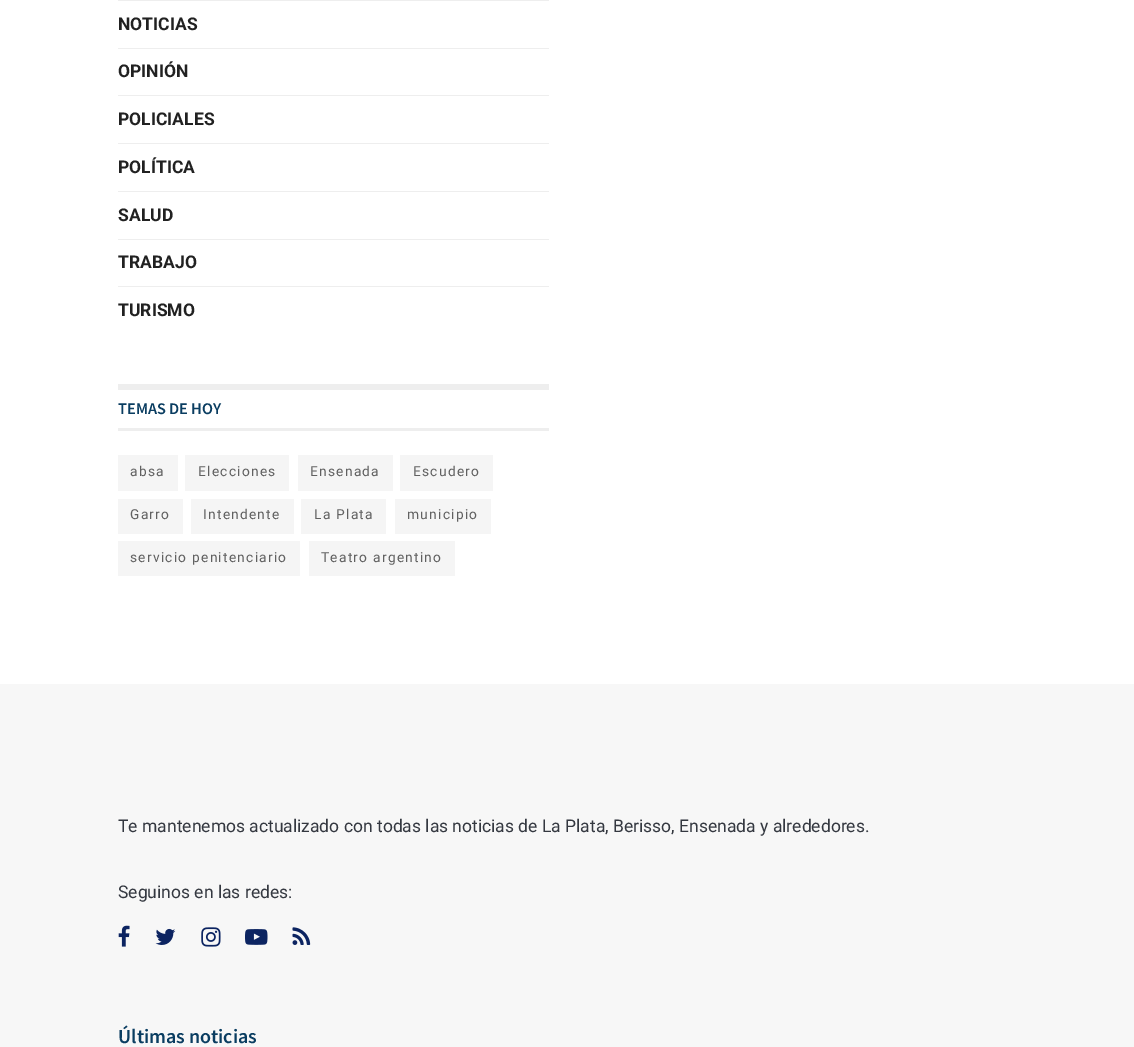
%!PS
<< /PageSize [1134 1047] >> setpagedevice
/m/moveto load def
/C { dup -16 bitshift 255 div exch dup -8 bitshift 255 and 255 div exch 255 and 255 div setrgbcolor } def
/F { [ exch dup neg 0 0 3 -1 roll 0 0 ] selectfont } def
/T { moveto show } def
/R { rectfill } def
/I { 5 dict begin { /h /w /y /x /name } { exch def } forall
  gsave x y translate w h scale
  w h 8 [w 0 0 h 0 0] name (r) file false 3 colorimage grestore end } def
0 1047 translate 1 -1 scale
4 setmiterlimit
16#FFFFFF C
0 0 1134 1047 R
16#EEEEEE C
118 0 431 1 R
/Roboto-Bold 17.5 F
16#212121 C
(NOTICIAS) 118 30 T
16#EEEEEE C
118 48 431 1 R
16#212121 C
(OPINIÓN) 118 77 T
16#EEEEEE C
118 95 431 1 R
16#212121 C
(POLICIALES) 118 125 T
16#EEEEEE C
118 143 431 1 R
16#212121 C
(POLÍTICA) 118 173 T
16#EEEEEE C
118 191 431 1 R
16#212121 C
(SALUD) 118 221 T
16#EEEEEE C
118 239 431 1 R
16#212121 C
(TRABAJO) 118 268 T
16#EEEEEE C
118 286 431 1 R
16#212121 C
(TURISMO) 118 316 T
16#EEEEEE C
118 384 431 6 R
118 428 431 3 R
/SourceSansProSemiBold-SemiBold 16.25 F
16#0A3D61 C
(TEMAS DE HOY) 118 414 T
16#F5F5F5 C
118 455 60 36 R
/Roboto-Regular 13.75 F
16#616161 C
130 476 m 1.25 0 (absa) ashow
16#F5F5F5 C
185 455 104 36 R
16#616161 C
198 476 m 1.25 0 (Elecciones) ashow
16#F5F5F5 C
298 455 95 36 R
16#616161 C
310 476 m 1.25 0 (Ensenada) ashow
16#F5F5F5 C
400 455 93 36 R
16#616161 C
413 476 m 1.25 0 (Escudero) ashow
16#F5F5F5 C
118 499 65 35 R
16#616161 C
130 519 m 1.25 0 (Garro) ashow
16#F5F5F5 C
191 499 103 35 R
16#616161 C
203 519 m 1.25 0 (Intendente) ashow
16#F5F5F5 C
301 499 85 35 R
16#616161 C
314 519 m 1.25 0 (La Plata) ashow
16#F5F5F5 C
395 499 96 35 R
16#616161 C
407 519 m 1.25 0 (municipio) ashow
16#F5F5F5 C
118 541 182 35 R
16#616161 C
130 562 m 1.25 0 (servicio penitenciario) ashow
16#F5F5F5 C
309 541 146 35 R
16#616161 C
321 562 m 1.25 0 (Teatro argentino) ashow
16#F7F7F7 C
0 684 1134 363 R
/Roboto-Regular 17.5 F
16#343840 C
(Te mantenemos actualizado con todas las noticias de La Plata, Berisso, Ensenada y alrededores.) 118 832 T
(Seguinos en las redes:) 118 898 T
(1.rgb) 118 925 12 22 I
(2.rgb) 155 928 21 17 I
(3.rgb) 201 927 20 20 I
(4.rgb) 245 929 23 16 I
(5.rgb) 292 927 19 18 I
/SourceSansProSemiBold-SemiBold 20 F
16#0A3D61 C
(Últimas noticias) 118 1043 T
showpage
